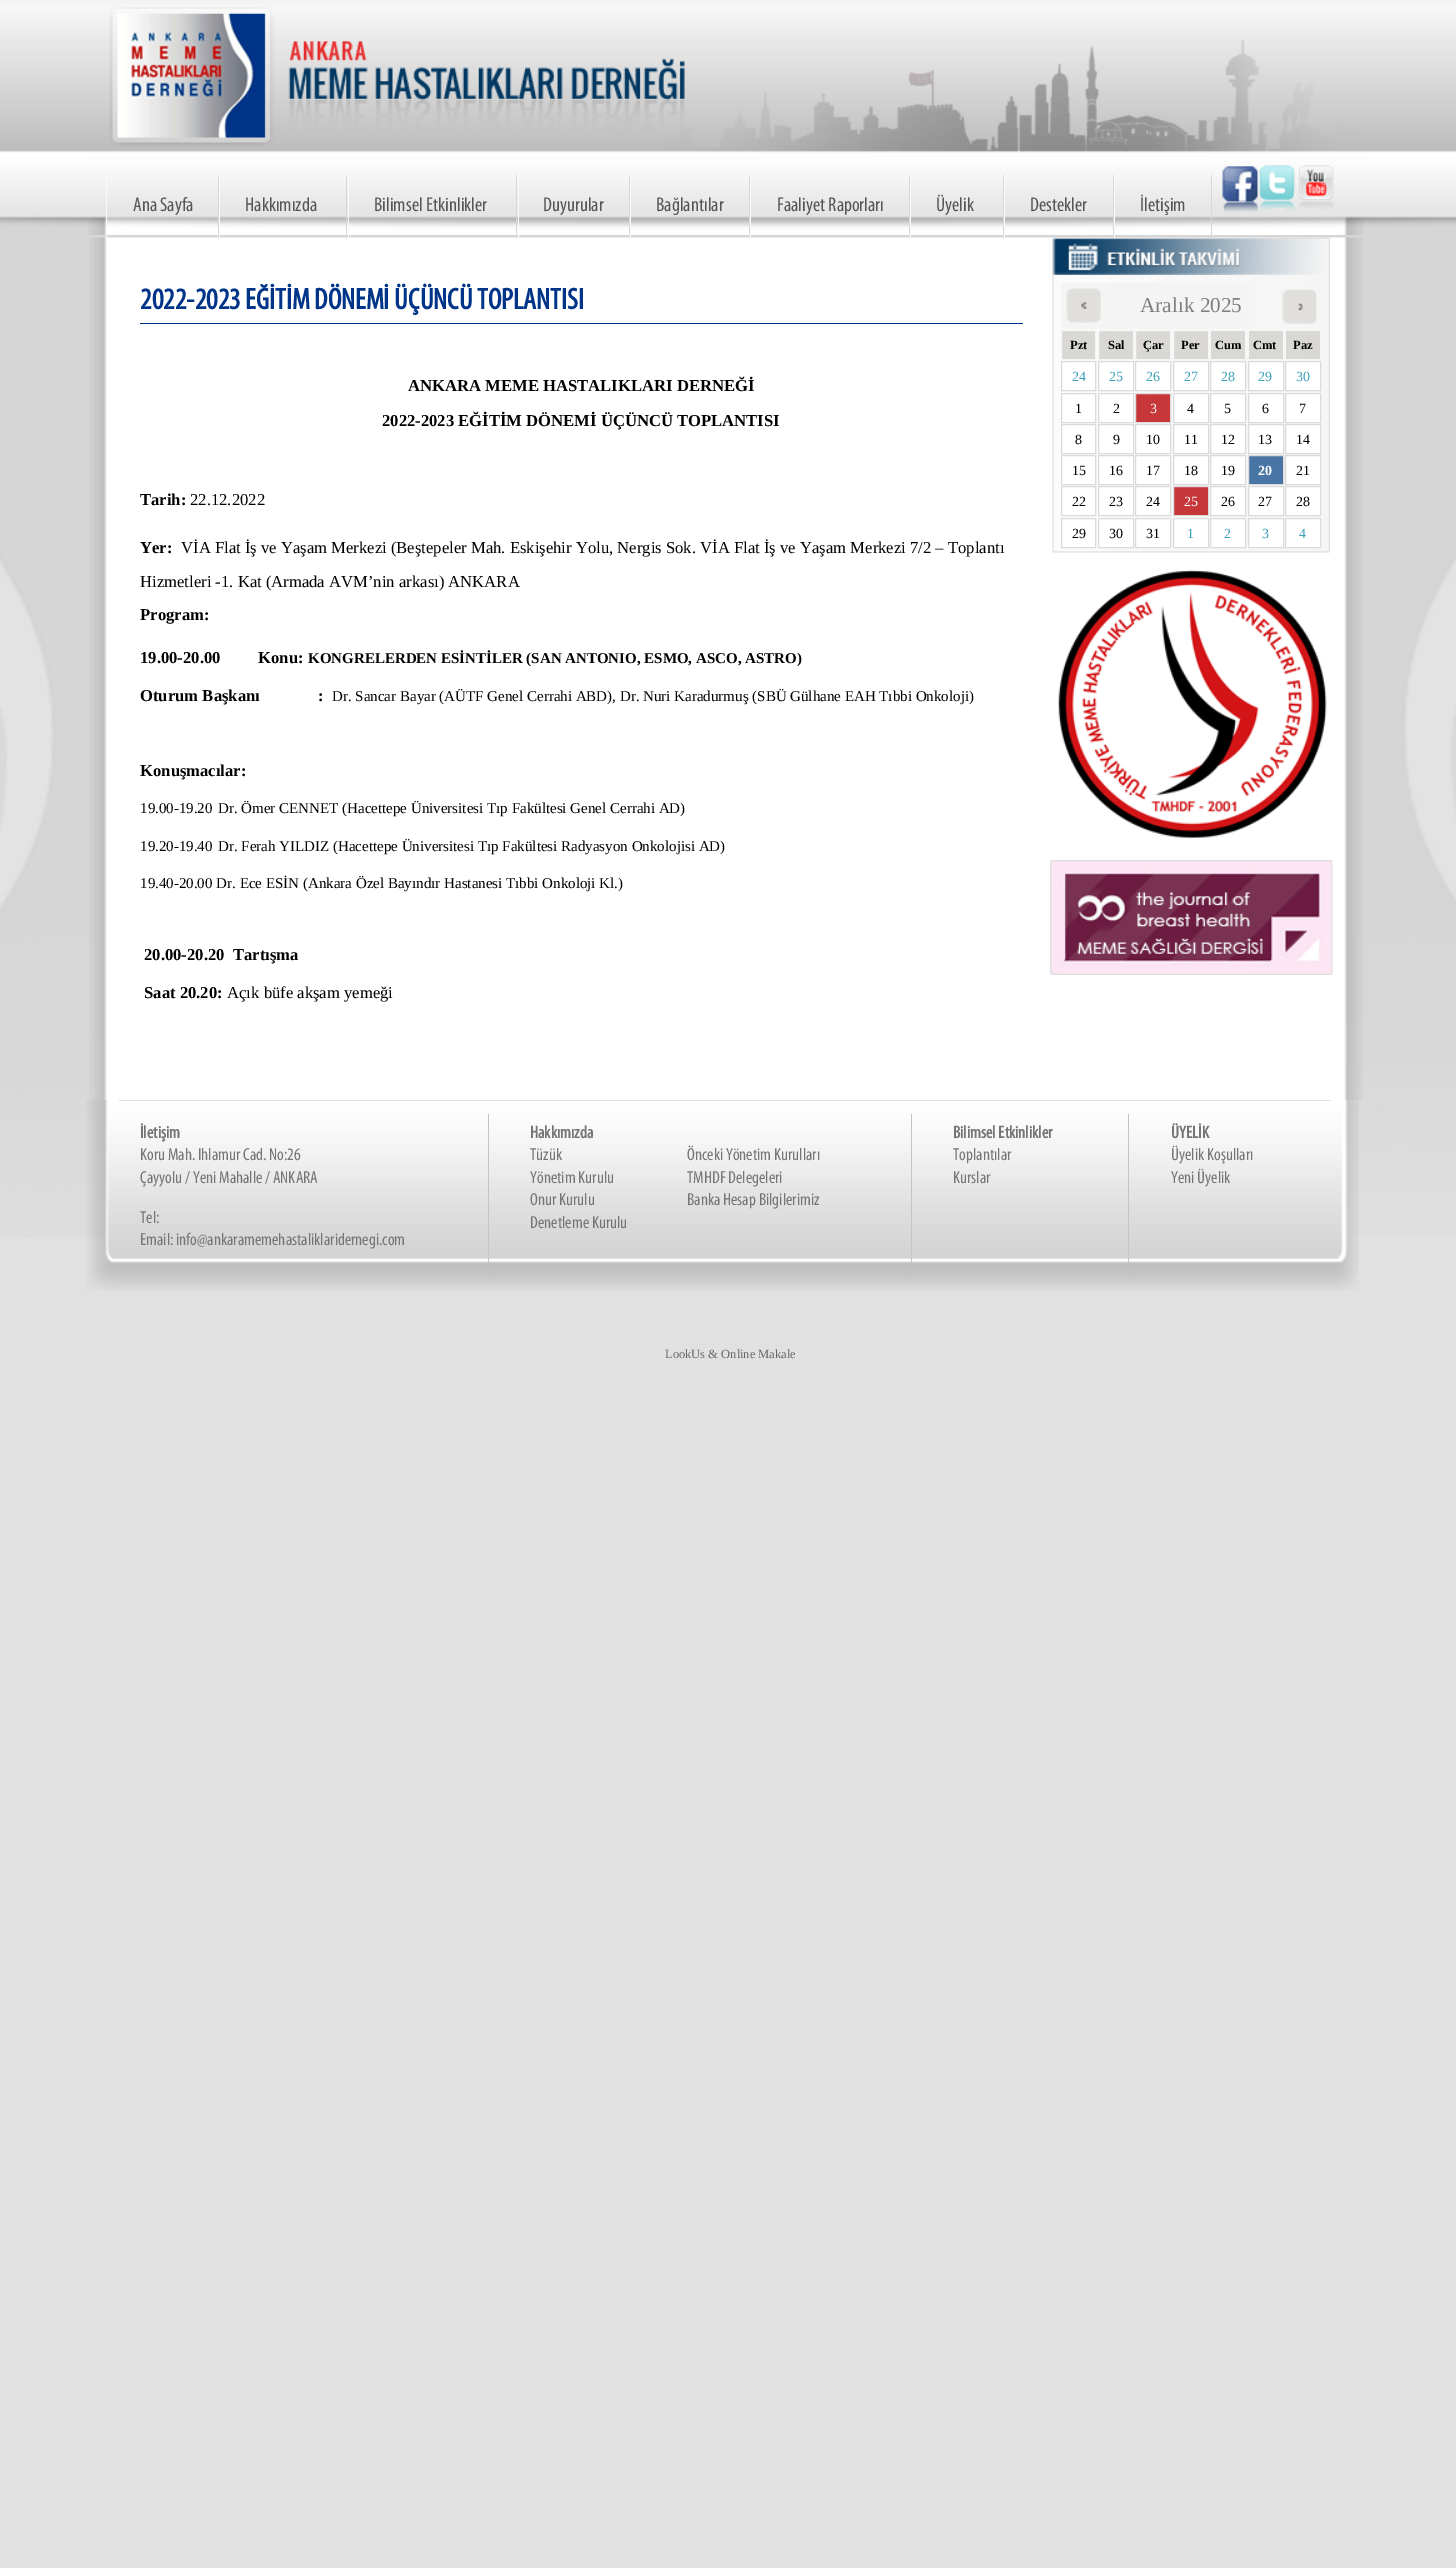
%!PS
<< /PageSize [1456 2568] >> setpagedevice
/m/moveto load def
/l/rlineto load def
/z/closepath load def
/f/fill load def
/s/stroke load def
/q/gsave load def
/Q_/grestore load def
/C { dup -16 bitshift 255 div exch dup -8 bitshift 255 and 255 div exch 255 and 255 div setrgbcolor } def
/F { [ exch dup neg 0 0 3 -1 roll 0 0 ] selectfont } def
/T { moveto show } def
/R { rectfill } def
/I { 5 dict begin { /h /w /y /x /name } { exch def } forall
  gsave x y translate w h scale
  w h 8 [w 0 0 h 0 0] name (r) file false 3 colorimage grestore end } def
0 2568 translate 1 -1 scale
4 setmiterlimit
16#E1E1E1 C
0 0 1456 2568 R
(1.rgb) 0 0 1456 1237 I
(2.rgb) 88 40 1276 195 I
(3.rgb) 109 7 576 140 I
(5.rgb) 89 237 1274 863 I
16#D8D8D8 C
218 175 1 63 R
16#F9F9F9 C
106 175 1 63 R
/Myriad-Regular 20 F
16#555555 C
(Ana Sayfa) 133 211 T
16#D8D8D8 C
346 175 1 63 R
16#F9F9F9 C
219 175 1 63 R
16#555555 C
(Hakkımızda) 245 211 T
16#D8D8D8 C
516 175 1 63 R
16#F9F9F9 C
348 175 1 63 R
16#555555 C
(Bilimsel Etkinlikler) 374 211 T
16#D8D8D8 C
629 175 1 63 R
16#F9F9F9 C
518 175 1 63 R
16#555555 C
(Duyurular) 543 211 T
16#D8D8D8 C
749 175 1 63 R
16#F9F9F9 C
630 175 1 63 R
16#555555 C
(Bağlantılar) 656 211 T
16#D8D8D8 C
909 175 1 63 R
16#F9F9F9 C
750 175 1 63 R
16#555555 C
(Faaliyet Raporları) 777 211 T
16#D8D8D8 C
1003 175 1 63 R
16#F9F9F9 C
910 175 1 63 R
16#555555 C
(Üyelik) 936 211 T
(6.rgb) 1052 237 278 38 I
16#D8D8D8 C
1113 175 1 63 R
16#F9F9F9 C
1004 175 1 63 R
16#555555 C
(Destekler) 1030 211 T
16#D8D8D8 C
1211 175 1 63 R
16#F9F9F9 C
1114 175 1 63 R
16#555555 C
(İletişim) 1140 211 T
(4.rgb) 1222 165 112 47 I
16#003488 C
140 323 883 1 R
/Myriad-Bold 30 F
(2022-2023 EĞİTİM DÖNEMİ ÜÇÜNCÜ TOPLANTISI) 140 309 T
/LiberationSerif-Bold 16.65 F
16#000000 C
(ANKARA MEME HASTALIKLARI DERNEĞİ) 408 391 T
(2022-2023 EĞİTİM DÖNEMİ ÜÇÜNCÜ TOPLANTISI) 382 426 T
(Tarih:) 140 505 T
/LiberationSerif-Regular 16.65 F
(22.12.2022) 190 505 T
/LiberationSerif-Bold 16.65 F
(Yer:) 140 553 T
/LiberationSerif-Regular 16.65 F
(VİA Flat İş ve Yaşam Merkezi \(Beştepeler Mah. Eskişehir Yolu, Nergis Sok. VİA Flat İş ve Yaşam Merkezi 7/2 – Toplantı) 181 553 T
(Hizmetleri -1. Kat \(Armada AVM’nin arkası\) ANKARA) 140 587 T
/LiberationSerif-Bold 16.65 F
(Program:) 140 620 T
(19.00-20.00) 140 663 T
(Konu:) 258 663 T
/LiberationSerif-Bold 15 F
(KONGRELERDEN ESİNTİLER \(SAN ANTONIO, ESMO, ASCO, ASTRO\)) 308 663 T
/LiberationSerif-Bold 16.65 F
(Oturum Başkanı) 140 701 T
(:) 318 701 T
/LiberationSerif-Regular 15 F
(Dr. Sancar Bayar \(AÜTF Genel Cerrahi ABD\), Dr. Nuri Karadurmuş \(SBÜ Gülhane EAH Tıbbi Onkoloji\)) 332 701 T
/LiberationSerif-Bold 16.65 F
(Konuşmacılar:) 140 776 T
/LiberationSerif-Regular 15 F
(19.00-19.20) 140 813 T
(Dr. Ömer CENNET \(Hacettepe Üniversitesi Tıp Fakültesi Genel Cerrahi AD\)) 218 813 T
(19.20-19.40) 140 851 T
(Dr. Ferah YILDIZ \(Hacettepe Üniversitesi Tıp Fakültesi Radyasyon Onkolojisi AD\)) 218 851 T
(19.40-20.00 Dr. Ece ESİN \(Ankara Özel Bayındır Hastanesi Tıbbi Onkoloji Kl.\)) 140 888 T
/LiberationSerif-Bold 16.65 F
(20.00-20.20) 144 960 T
(Tartışma) 233 960 T
(Saat 20.20:) 144 998 T
/LiberationSerif-Regular 16.65 F
(Açık büfe akşam yemeği) 227 998 T
(7.rgb) 1052 275 278 274 I
16#F4F4F4 C
1061 283 188 46 R
(8.rgb) 1066 288 35 35 I
/LiberationSerif-Regular 21.25 F
16#818081 C
(Aralık 2025) 1140 312 T
(9.rgb) 1282 289 35 35 I
16#D9D8D4 C
1061.5 330.5 m 34 0 l 0 29 l -34 0 l z q f Q_
16#F5F5F5 C
s
/LiberationSerif-Bold 12.5 F
16#000000 C
(Pzt) 1070 349 T
16#D9D8D4 C
1098.5 330.5 m 35 0 l 0 29 l -35 0 l z q f Q_
16#F5F5F5 C
s
16#000000 C
(Sal) 1108 349 T
16#D9D8D4 C
1135.5 330.5 m 35 0 l 0 29 l -35 0 l z q f Q_
16#F5F5F5 C
s
16#000000 C
(Çar) 1143 349 T
16#D9D8D4 C
1173.5 330.5 m 35 0 l 0 29 l -35 0 l z q f Q_
16#F5F5F5 C
s
16#000000 C
(Per) 1181 349 T
16#D9D8D4 C
1211 331 34 28 R
16#000000 C
(Cum) 1215 349 T
16#D9D8D4 C
1249 331 34 28 R
16#000000 C
(Cmt) 1253 349 T
16#D9D8D4 C
1286 331 34 28 R
16#000000 C
(Paz) 1293 349 T
16#FFFFFF C
1061.5 361.5 m 34 0 l 0 29 l -34 0 l z q f Q_
16#DBDBDB C
s
/LiberationSerif-Regular 14 F
16#3D9FB8 C
(24) 1072 381 T
16#FFFFFF C
1098.5 361.5 m 35 0 l 0 29 l -35 0 l z q f Q_
16#DBDBDB C
s
16#3D9FB8 C
(25) 1109 381 T
16#FFFFFF C
1135.5 361.5 m 35 0 l 0 29 l -35 0 l z q f Q_
16#DBDBDB C
s
16#3D9FB8 C
(26) 1146 381 T
16#FFFFFF C
1173.5 361.5 m 35 0 l 0 29 l -35 0 l z q f Q_
16#DBDBDB C
s
16#3D9FB8 C
(27) 1184 381 T
16#FFFFFF C
1210.5 361.5 m 35 0 l 0 29 l -35 0 l z q f Q_
16#DBDBDB C
s
16#3D9FB8 C
(28) 1221 381 T
16#FFFFFF C
1248.5 361.5 m 35 0 l 0 29 l -35 0 l z q f Q_
16#DBDBDB C
s
16#3D9FB8 C
(29) 1258 381 T
16#FFFFFF C
1285.5 361.5 m 35 0 l 0 29 l -35 0 l z q f Q_
16#DBDBDB C
s
16#3D9FB8 C
(30) 1296 381 T
16#FFFFFF C
1061.5 393.5 m 34 0 l 0 29 l -34 0 l z q f Q_
16#DBDBDB C
s
16#000000 C
(1) 1075 413 T
16#FFFFFF C
1098.5 393.5 m 35 0 l 0 29 l -35 0 l z q f Q_
16#DBDBDB C
s
16#000000 C
(2) 1113 413 T
16#C73639 C
1135.5 393.5 m 35 0 l 0 29 l -35 0 l z q f Q_
16#DBDBDB C
s
16#FFFFFF C
(3) 1150 413 T
1173.5 393.5 m 35 0 l 0 29 l -35 0 l z q f Q_
16#DBDBDB C
s
16#000000 C
(4) 1187 413 T
16#FFFFFF C
1210.5 393.5 m 35 0 l 0 29 l -35 0 l z q f Q_
16#DBDBDB C
s
16#000000 C
(5) 1224 413 T
16#FFFFFF C
1248.5 393.5 m 35 0 l 0 29 l -35 0 l z q f Q_
16#DBDBDB C
s
16#000000 C
(6) 1262 413 T
16#FFFFFF C
1285.5 393.5 m 35 0 l 0 29 l -35 0 l z q f Q_
16#DBDBDB C
s
16#000000 C
(7) 1299 413 T
16#FFFFFF C
1061.5 424.5 m 34 0 l 0 29 l -34 0 l z q f Q_
16#DBDBDB C
s
16#000000 C
(8) 1075 444 T
16#FFFFFF C
1098.5 424.5 m 35 0 l 0 29 l -35 0 l z q f Q_
16#DBDBDB C
s
16#000000 C
(9) 1113 444 T
16#FFFFFF C
1135.5 424.5 m 35 0 l 0 29 l -35 0 l z q f Q_
16#DBDBDB C
s
16#000000 C
(10) 1146 444 T
16#FFFFFF C
1173.5 424.5 m 35 0 l 0 29 l -35 0 l z q f Q_
16#DBDBDB C
s
16#000000 C
(11) 1184 444 T
16#FFFFFF C
1210.5 424.5 m 35 0 l 0 29 l -35 0 l z q f Q_
16#DBDBDB C
s
16#000000 C
(12) 1221 444 T
16#FFFFFF C
1248.5 424.5 m 35 0 l 0 29 l -35 0 l z q f Q_
16#DBDBDB C
s
16#000000 C
(13) 1258 444 T
16#FFFFFF C
1285.5 424.5 m 35 0 l 0 29 l -35 0 l z q f Q_
16#DBDBDB C
s
16#000000 C
(14) 1296 444 T
16#FFFFFF C
1061.5 455.5 m 34 0 l 0 29 l -34 0 l z q f Q_
16#DBDBDB C
s
16#000000 C
(15) 1072 475 T
16#FFFFFF C
1098.5 455.5 m 35 0 l 0 29 l -35 0 l z q f Q_
16#DBDBDB C
s
16#000000 C
(16) 1109 475 T
16#FFFFFF C
1135.5 455.5 m 35 0 l 0 29 l -35 0 l z q f Q_
16#DBDBDB C
s
16#000000 C
(17) 1146 475 T
16#FFFFFF C
1173.5 455.5 m 35 0 l 0 29 l -35 0 l z q f Q_
16#DBDBDB C
s
16#000000 C
(18) 1184 475 T
16#FFFFFF C
1210.5 455.5 m 35 0 l 0 29 l -35 0 l z q f Q_
16#DBDBDB C
s
16#000000 C
(19) 1221 475 T
16#4875A5 C
1248.5 455.5 m 35 0 l 0 29 l -35 0 l z q f Q_
16#DBDBDB C
s
/LiberationSerif-Bold 14 F
16#FFFFFF C
(20) 1258 475 T
1285.5 455.5 m 35 0 l 0 29 l -35 0 l z q f Q_
16#DBDBDB C
s
/LiberationSerif-Regular 14 F
16#000000 C
(21) 1296 475 T
16#FFFFFF C
1061.5 486.5 m 34 0 l 0 29 l -34 0 l z q f Q_
16#DBDBDB C
s
16#000000 C
(22) 1072 506 T
16#FFFFFF C
1098.5 486.5 m 35 0 l 0 29 l -35 0 l z q f Q_
16#DBDBDB C
s
16#000000 C
(23) 1109 506 T
16#FFFFFF C
1135.5 486.5 m 35 0 l 0 29 l -35 0 l z q f Q_
16#DBDBDB C
s
16#000000 C
(24) 1146 506 T
16#C73639 C
1173.5 486.5 m 35 0 l 0 29 l -35 0 l z q f Q_
16#DBDBDB C
s
16#FFFFFF C
(25) 1184 506 T
1210.5 486.5 m 35 0 l 0 29 l -35 0 l z q f Q_
16#DBDBDB C
s
16#000000 C
(26) 1221 506 T
16#FFFFFF C
1248.5 486.5 m 35 0 l 0 29 l -35 0 l z q f Q_
16#DBDBDB C
s
16#000000 C
(27) 1258 506 T
16#FFFFFF C
1285.5 486.5 m 35 0 l 0 29 l -35 0 l z q f Q_
16#DBDBDB C
s
16#000000 C
(28) 1296 506 T
16#FFFFFF C
1061.5 518.5 m 34 0 l 0 29 l -34 0 l z q f Q_
16#DBDBDB C
s
16#000000 C
(29) 1072 538 T
16#FFFFFF C
1098.5 518.5 m 35 0 l 0 29 l -35 0 l z q f Q_
16#DBDBDB C
s
16#000000 C
(30) 1109 538 T
16#FFFFFF C
1135.5 518.5 m 35 0 l 0 29 l -35 0 l z q f Q_
16#DBDBDB C
s
16#000000 C
(31) 1146 538 T
16#FFFFFF C
1173.5 518.5 m 35 0 l 0 29 l -35 0 l z q f Q_
16#DBDBDB C
s
16#3D9FB8 C
(1) 1187 538 T
16#FFFFFF C
1210.5 518.5 m 35 0 l 0 29 l -35 0 l z q f Q_
16#DBDBDB C
s
16#3D9FB8 C
(2) 1224 538 T
16#FFFFFF C
1248.5 518.5 m 35 0 l 0 29 l -35 0 l z q f Q_
16#DBDBDB C
s
16#3D9FB8 C
(3) 1262 538 T
16#FFFFFF C
1285.5 518.5 m 35 0 l 0 29 l -35 0 l z q f Q_
16#DBDBDB C
s
16#3D9FB8 C
(4) 1299 538 T
(10.rgb) 1052 549 278 4 I
(11.rgb) 1058 570 269 269 I
(12.rgb) 1050 860 283 115 I
(13.rgb) 86 1100 1273 191 I
16#E1E1E1 C
119 1100 1212 1 R
/Myriad-Bold 17.5 F
16#757575 C
(İletişim) 140 1138 T
/Myriad-Regular 17.5 F
(Koru Mah. Ihlamur Cad. No:26) 140 1160 T
(Çayyolu / Yeni Mahalle / ANKARA) 140 1183 T
(Tel:) 140 1223 T
(Email: info@ankaramemehastaliklaridernegi.com) 140 1245 T
16#C4C4C4 C
488 1114 1 165 R
/Myriad-Bold 17.5 F
16#757575 C
(Hakkımızda) 530 1138 T
/Myriad-Regular 17.5 F
(Tüzük) 530 1160 T
(Yönetim Kurulu) 530 1183 T
(Onur Kurulu) 530 1205 T
(Denetleme Kurulu) 530 1228 T
(Önceki Yönetim Kurulları) 687 1160 T
(TMHDF Delegeleri) 687 1183 T
(Banka Hesap Bilgilerimiz) 687 1205 T
16#C4C4C4 C
911 1114 1 165 R
/Myriad-Bold 17.5 F
16#757575 C
(Bilimsel Etkinlikler) 953 1138 T
/Myriad-Regular 17.5 F
(Toplantılar) 953 1160 T
(Kurslar) 953 1183 T
16#C4C4C4 C
1128 1114 1 165 R
/Myriad-Bold 17.5 F
16#757575 C
(ÜYELİK) 1171 1138 T
/Myriad-Regular 17.5 F
(Üyelik Koşulları) 1171 1160 T
(Yeni Üyelik) 1171 1183 T
/LiberationSerif-Regular 12.5 F
16#666666 C
(LookUs & Online Makale) 665 1358 T
showpage
